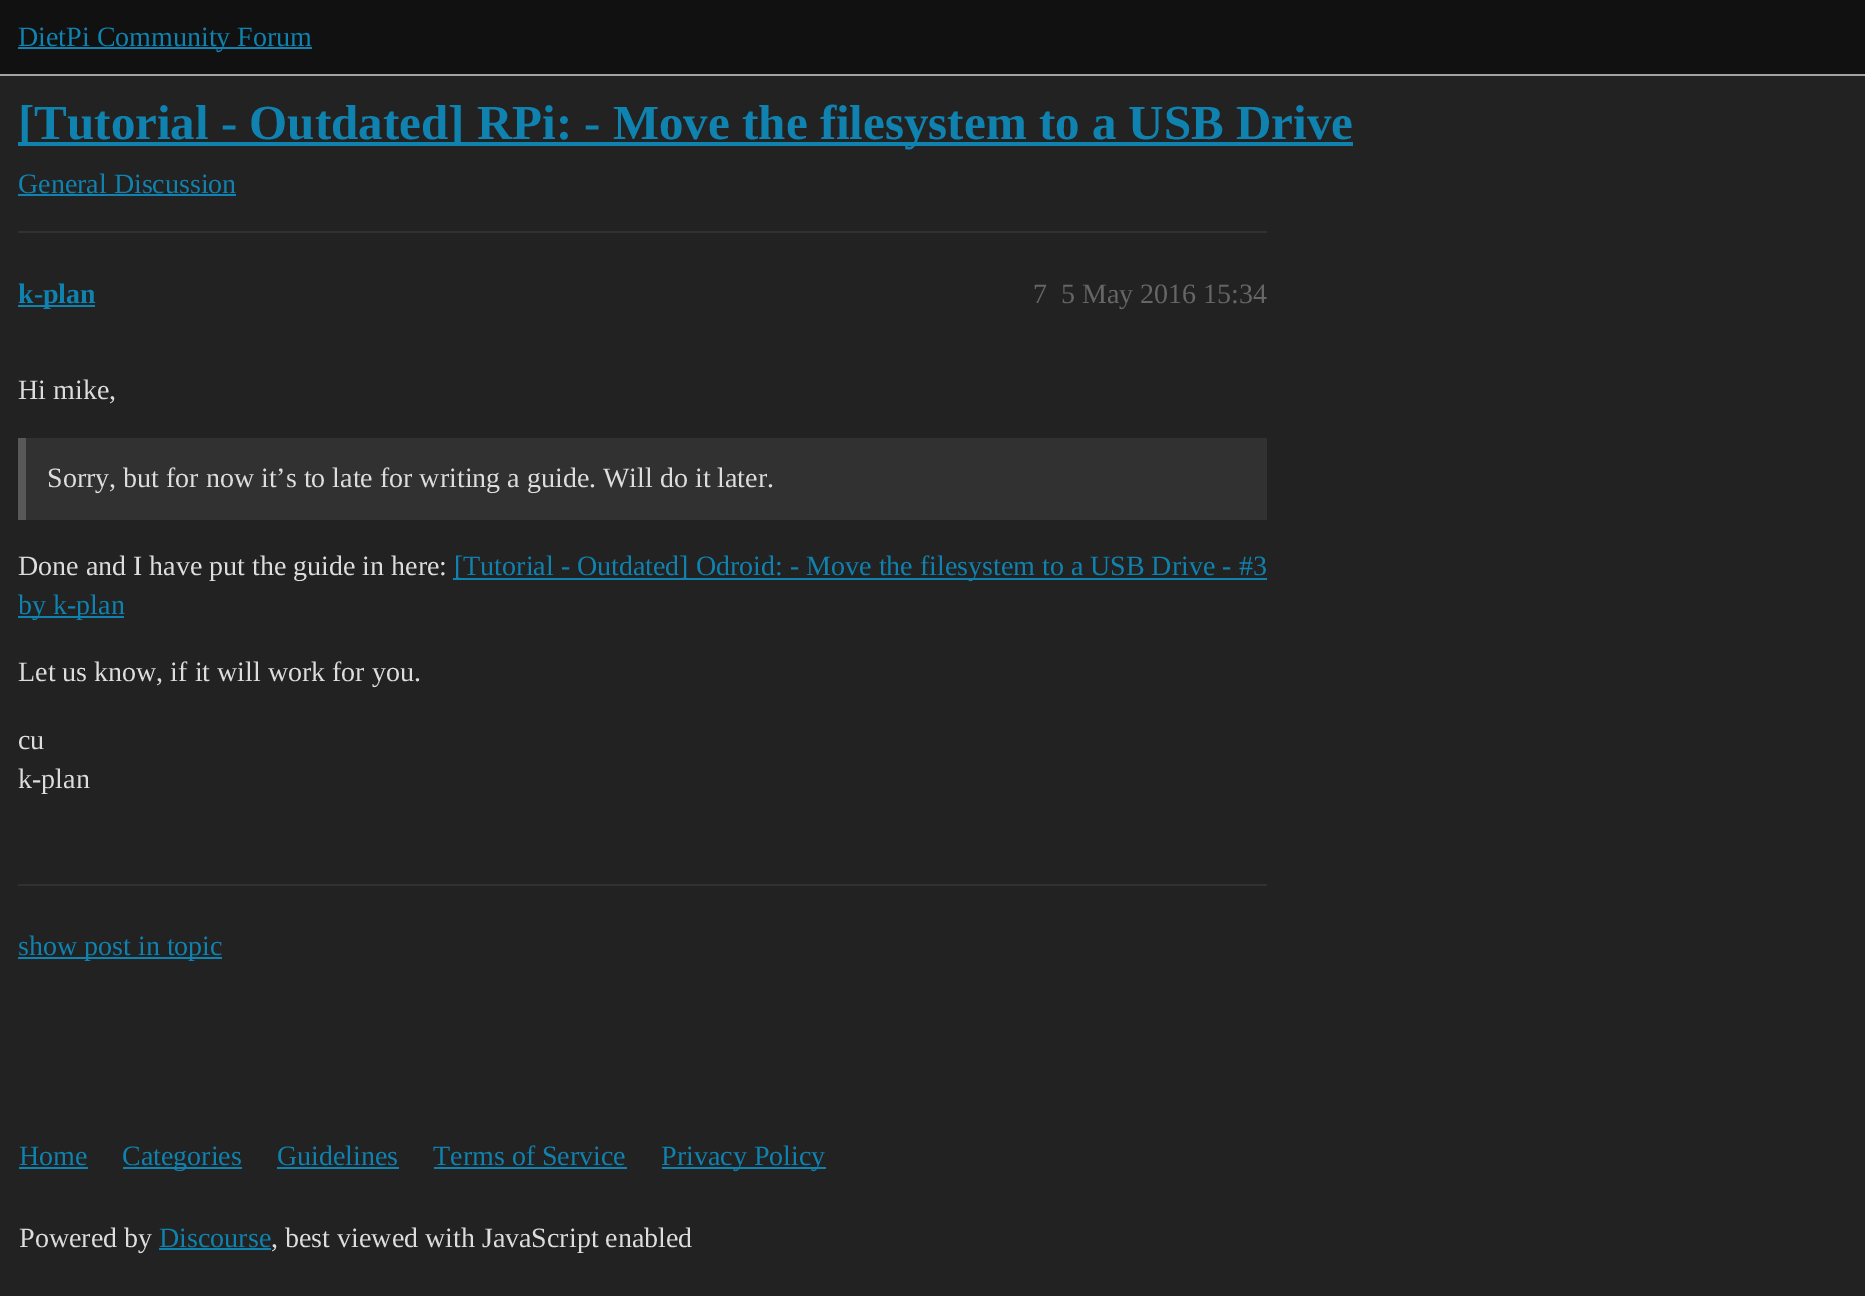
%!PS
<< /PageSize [1865 1296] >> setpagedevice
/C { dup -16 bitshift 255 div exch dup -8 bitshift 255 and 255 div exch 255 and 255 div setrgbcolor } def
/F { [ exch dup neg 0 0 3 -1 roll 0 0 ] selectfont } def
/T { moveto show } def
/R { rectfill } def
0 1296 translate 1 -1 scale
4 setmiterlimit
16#222222 C
0 0 1865 1296 R
16#111111 C
0 0 1865 74 R
16#A4A4A4 C
0 74 1865 2 R
16#0F82AF C
18 47 294 2 R
/LiberationSerif-Regular 28 F
(DietPi Community Forum) 18 46 T
18 142 1335 4 R
/LiberationSerif-Bold 49 F
([Tutorial - Outdated] RPi: - Move the filesystem to a USB Drive) 18 139 T
/LiberationSerif-Regular 28 F
(General Discussion) 18 193 T
18 194 218 2 R
16#313131 C
18 231 1249 2 R
16#0F82AF C
18 305 77 2 R
/LiberationSerif-Bold 28 F
(k-plan) 18 303 T
/LiberationSerif-Regular 28 F
16#666666 C
(7) 1033 303 T
(5 May 2016 15:34) 1061 303 T
16#DDDDDD C
(Hi mike,) 18 399 T
16#313131 C
26 438 1241 82 R
16#585858 C
18 438 8 82 R
16#DDDDDD C
(Sorry, but for now it’s to late for writing a guide. Will do it later.) 47 487 T
(Done and I have put the guide in here:) 18 575 T
16#0F82AF C
453 578 814 2 R
([Tutorial - Outdated] Odroid: - Move the filesystem to a USB Drive - #3) 454 575 T
18 616 106 2 R
(by k-plan) 18 614 T
16#DDDDDD C
(Let us know, if it will work for you.) 18 681 T
(cu) 18 749 T
(k-plan) 18 788 T
16#313131 C
18 884 1249 2 R
16#0F82AF C
18 957 204 2 R
(show post in topic) 18 955 T
(Home) 19 1165 T
19 1167 69 2 R
123 1167 119 2 R
(Categories) 122 1165 T
(Guidelines) 277 1165 T
277 1167 122 2 R
(Terms of Service) 433 1165 T
434 1167 193 2 R
662 1167 164 2 R
(Privacy Policy) 661 1165 T
16#DDDDDD C
(Powered by) 19 1247 T
16#0F82AF C
(Discourse) 159 1247 T
159 1248 112 2 R
16#DDDDDD C
(, best viewed with JavaScript enabled) 271 1247 T
showpage
